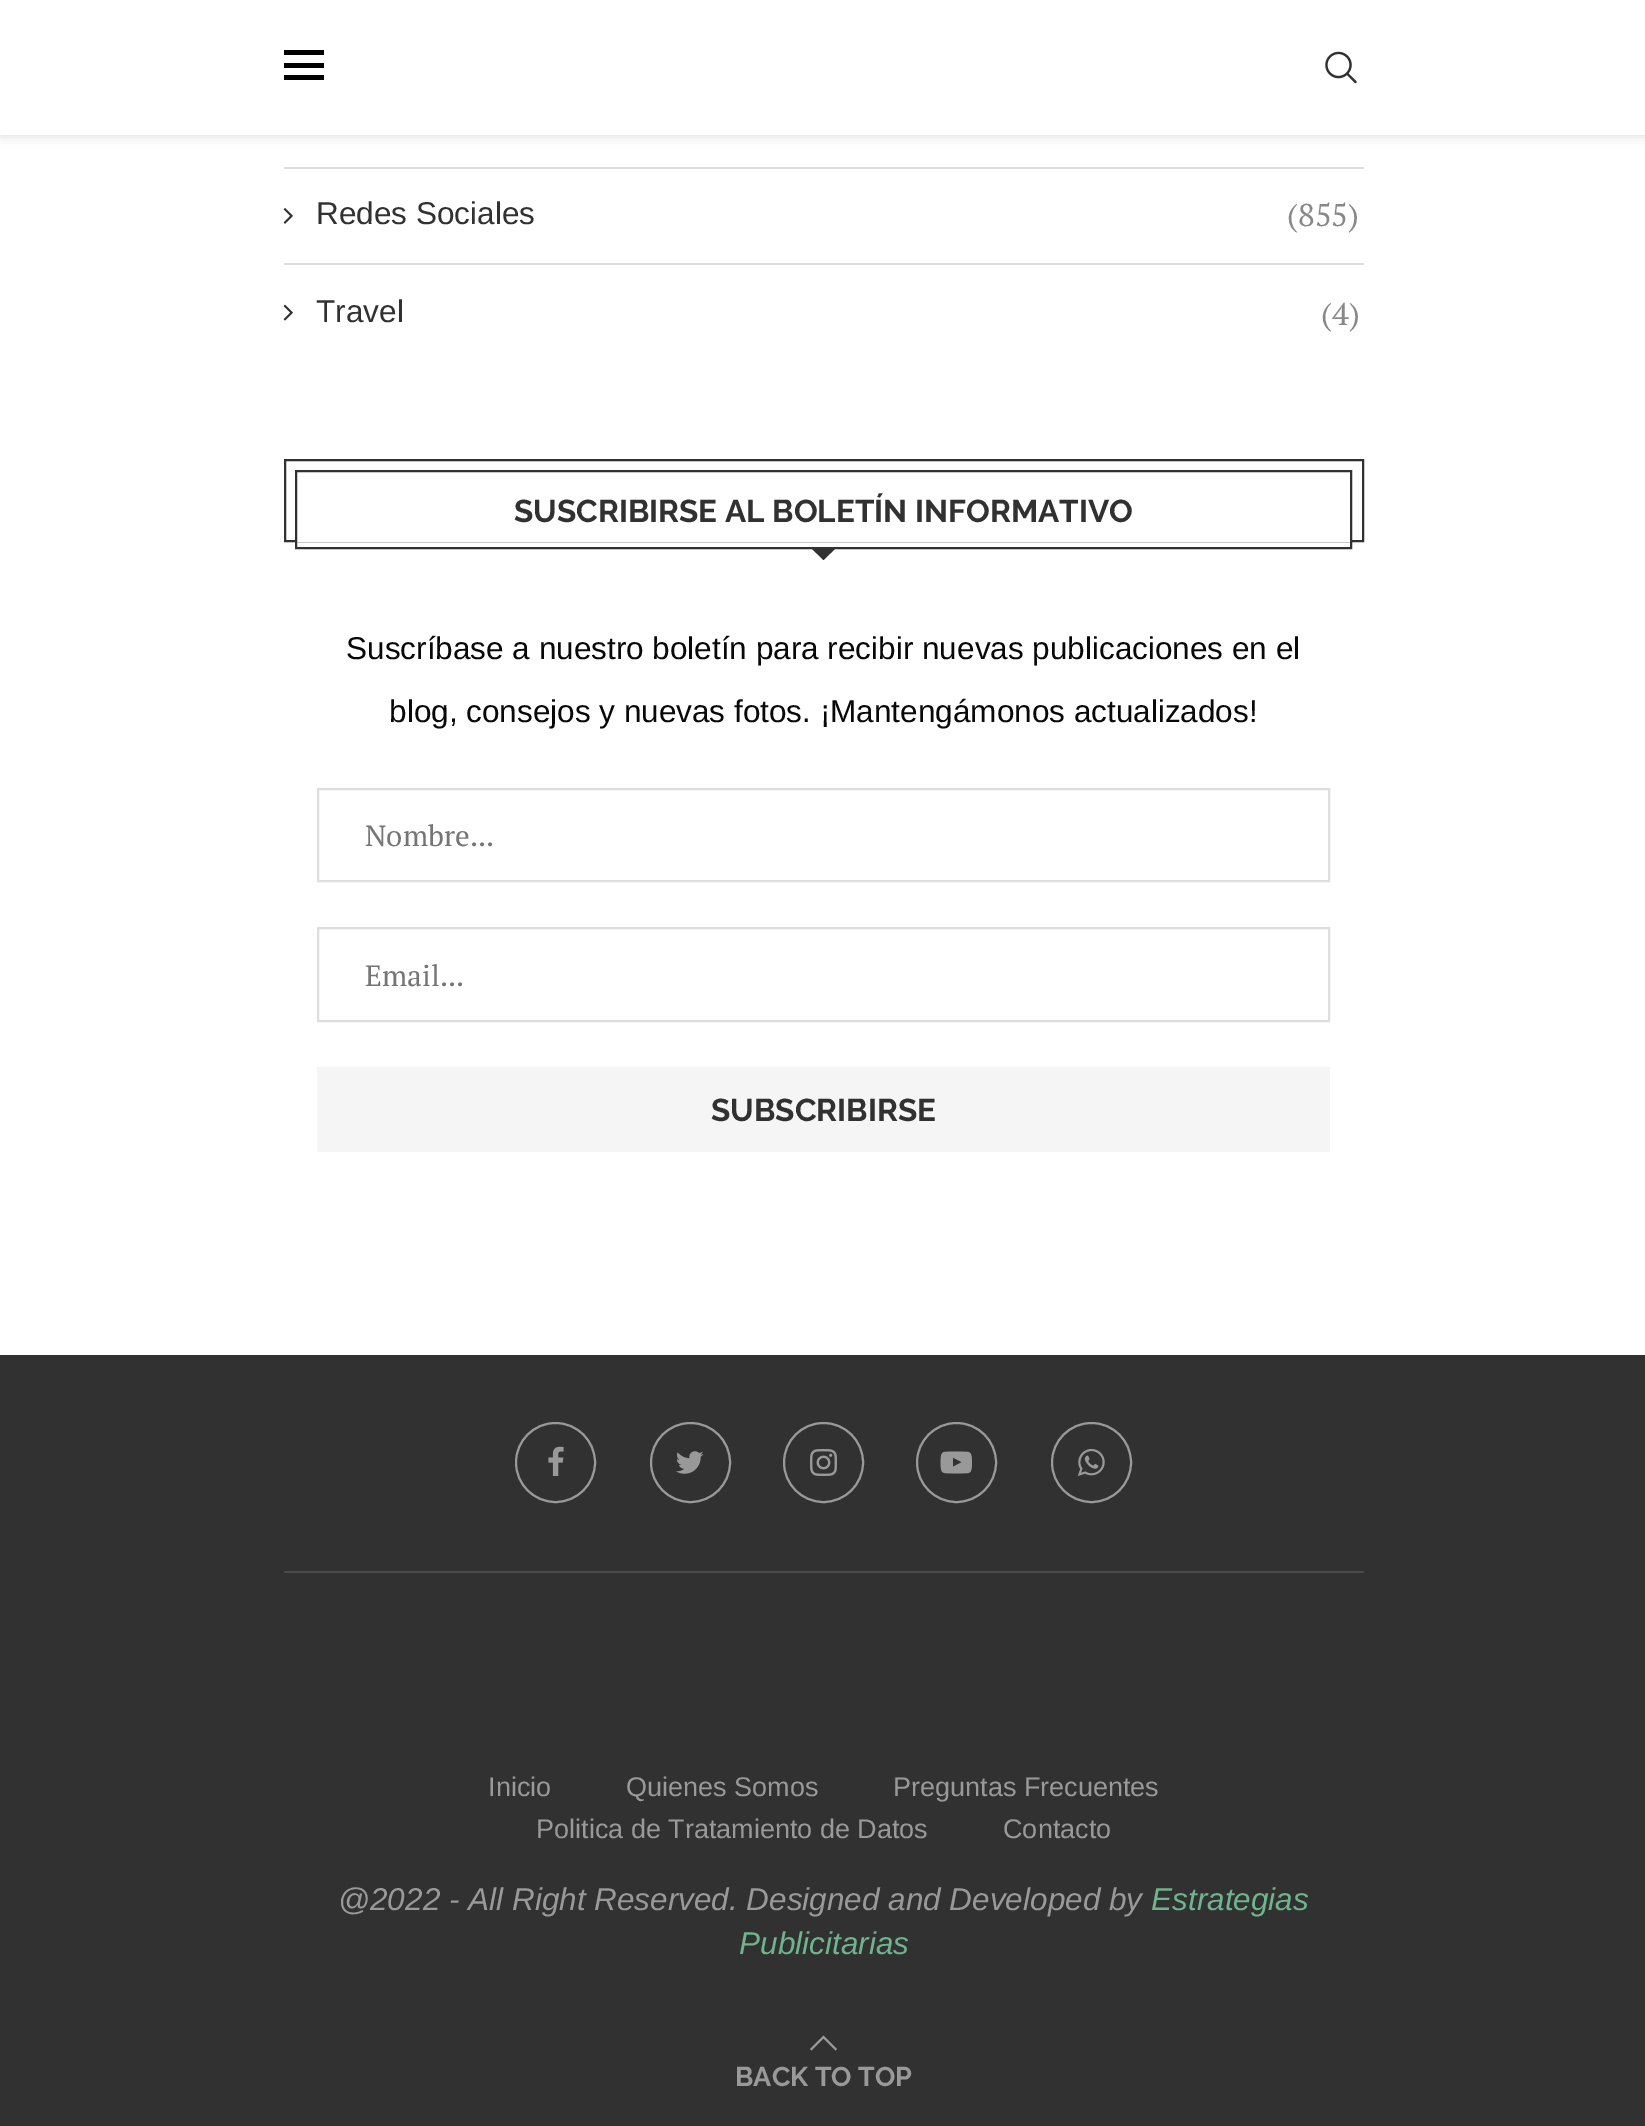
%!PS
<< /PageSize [1645 2126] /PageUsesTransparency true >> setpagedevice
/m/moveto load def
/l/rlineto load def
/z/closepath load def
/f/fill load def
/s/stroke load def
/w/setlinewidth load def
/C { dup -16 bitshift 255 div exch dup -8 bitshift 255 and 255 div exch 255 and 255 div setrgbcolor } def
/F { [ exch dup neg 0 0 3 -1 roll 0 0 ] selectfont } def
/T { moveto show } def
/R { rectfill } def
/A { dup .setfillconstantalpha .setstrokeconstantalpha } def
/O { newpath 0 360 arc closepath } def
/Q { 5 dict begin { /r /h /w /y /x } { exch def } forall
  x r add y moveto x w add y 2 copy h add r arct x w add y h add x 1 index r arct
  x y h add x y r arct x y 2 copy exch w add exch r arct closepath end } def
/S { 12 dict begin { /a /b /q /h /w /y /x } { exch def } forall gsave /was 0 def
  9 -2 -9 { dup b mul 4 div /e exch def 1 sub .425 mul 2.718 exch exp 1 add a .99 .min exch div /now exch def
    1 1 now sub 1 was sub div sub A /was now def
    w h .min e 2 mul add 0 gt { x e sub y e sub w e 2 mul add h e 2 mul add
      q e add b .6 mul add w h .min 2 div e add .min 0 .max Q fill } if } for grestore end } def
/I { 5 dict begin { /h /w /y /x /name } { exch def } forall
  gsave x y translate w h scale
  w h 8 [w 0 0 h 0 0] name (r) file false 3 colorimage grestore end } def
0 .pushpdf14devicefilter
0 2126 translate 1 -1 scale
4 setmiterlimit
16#FFFFFF C
0 0 1645 2126 R
16#BEBEBE C
0 2 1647 135 0 5.5 .46 S
16#FFFFFF C
0 0 1645 135 R
16#000000 C
284 50 40 5 R
284 63 40 5 R
284 75 40 5 R
(1.rgb) 1325 51 32 33 I
16#DEDEDE C
284 167 1080 2 R
284 263 1080 2 R
(2.rgb) 283 208 10 16 I
/LiberationSans-Regular 31.5 F
16#313131 C
(Redes Sociales) 316 224 T
/PTSerif-Regular 31.5 F
16#888888 C
(\(855\)) 1287 226 T
(3.rgb) 283 304 10 17 I
/LiberationSans-Regular 31.5 F
16#313131 C
(Travel) 316 322 T
/PTSerif-Regular 31.5 F
16#888888 C
(\(4\)) 1321 325 T
16#313131 C
2 w
285 460 1078 81 rectstroke
16#FFFFFF C
297 540 1053 2 R
16#313131 C
296 471 1055 77 rectstroke
/Raleway-Bold 31.5 F
(SUSCRIBIRSE AL BOLETÍN INFORMATIVO) 514 522 T
810 547 m 27 0 l -13.5 13 l z f
/LiberationSans-Regular 31.5 F
16#090808 C
(Suscríbase a nuestro boletín para recibir nuevas publicaciones en el) 346 659 T
(blog, consejos y nuevas fotos. ¡Mantengámonos actualizados!) 389 722 T
16#DEDEDE C
318 789 1011 92 rectstroke
/PTSerif-Regular 29.25 F
16#757575 C
(Nombre...) 365 846 T
16#DEDEDE C
318 928 1011 93 rectstroke
16#757575 C
(Email...) 365 986 T
16#F5F5F5 C
317 1067 1013 85 R
/Raleway-Bold 31.5 F
16#313131 C
(SUBSCRIBIRSE) 711 1121 T
0 1355 1645 771 R
16#4A4A4A C
284 1571 1080 2 R
16#999999 C
555.5 1462.5 39.5 O s
(4.rgb) 548 1446 16 30 I
690.5 1462.5 39.5 O s
(5.rgb) 676 1451 28 23 I
823.5 1462.5 39.5 O s
(6.rgb) 810 1449 27 27 I
956.5 1462.5 39.5 O s
(7.rgb) 940 1451 32 23 I
1091.5 1462.5 39.5 O s
(8.rgb) 1077 1448 28 28 I
/LiberationSans-Regular 27 F
(Inicio) 488 1796 T
(Quienes Somos) 626 1796 T
(Preguntas Frecuentes) 893 1796 T
(Politica de Tratamiento de Datos) 536 1838 T
(Contacto) 1003 1838 T
/LiberationSans-Italic 31.5 F
(@2022 - All Right Reserved. Designed and Developed by) 338 1910 T
16#6EB48C C
(Estrategias) 1151 1910 T
(Publicitarias) 739 1954 T
16#999999 C
823.5 2035.5 m -13.5 13.5 l 1.5 1.5 l 12 -12 l 12 12 l 1.5 -1.5 l z f
/Raleway-Bold 27 F
(BACK TO TOP) 735 2086 T
.poppdf14devicefilter showpage
